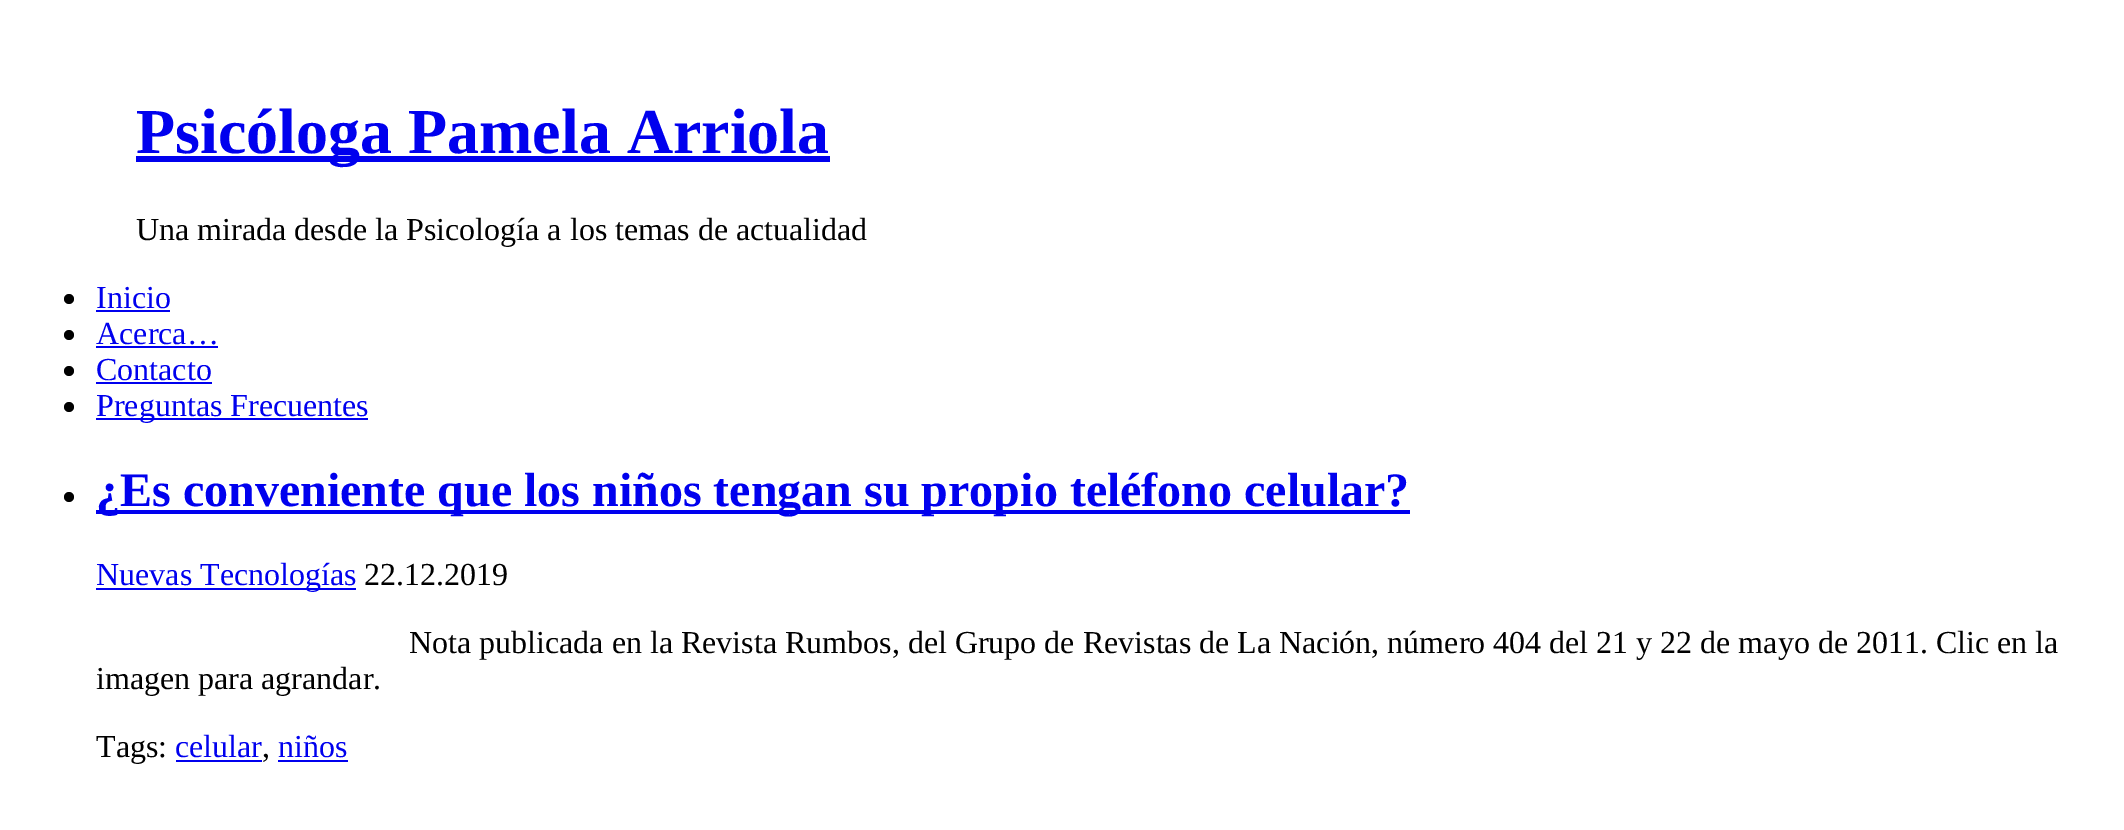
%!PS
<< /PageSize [2124 830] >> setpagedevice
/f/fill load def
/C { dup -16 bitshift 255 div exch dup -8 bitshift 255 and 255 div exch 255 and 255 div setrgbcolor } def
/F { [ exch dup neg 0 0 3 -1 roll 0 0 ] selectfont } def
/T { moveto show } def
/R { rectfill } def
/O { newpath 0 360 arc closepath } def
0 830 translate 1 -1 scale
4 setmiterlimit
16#FFFFFF C
0 0 2124 830 R
16#0000EE C
136 156 694 6 R
/LiberationSerif-Bold 64 F
(Psicóloga Pamela Arriola) 136 153 T
/LiberationSerif-Regular 32 F
16#000000 C
(Una mirada desde la Psicología a los temas de actualidad) 136 240 T
69 299 5 O f
16#0000EE C
(Inicio) 96 308 T
96 310 74 2 R
16#000000 C
69 335 5 O f
16#0000EE C
(Acerca…) 96 344 T
96 346 122 2 R
16#000000 C
69 371 5 O f
16#0000EE C
(Contacto) 96 380 T
96 382 116 2 R
16#000000 C
69 407 5 O f
16#0000EE C
96 418 272 2 R
(Preguntas Frecuentes) 96 416 T
16#000000 C
69 497 5 O f
16#0000EE C
96 510 1314 4 R
/LiberationSerif-Bold 48 F
(¿Es conveniente que los niños tengan su propio teléfono celular?) 96 506 T
96 588 260 2 R
/LiberationSerif-Regular 32 F
(Nuevas Tecnologías) 96 585 T
16#000000 C
(22.12.2019) 364 585 T
(Nota publicada en la Revista Rumbos, del Grupo de Revistas de La Nación, número 404 del 21 y 22 de mayo de 2011. Clic en la) 409 653 T
(imagen para agrandar.) 96 689 T
(Tags:) 96 757 T
16#0000EE C
(celular) 175 757 T
176 760 86 2 R
16#000000 C
(,) 262 757 T
16#0000EE C
(niños) 278 757 T
278 760 70 2 R
showpage
